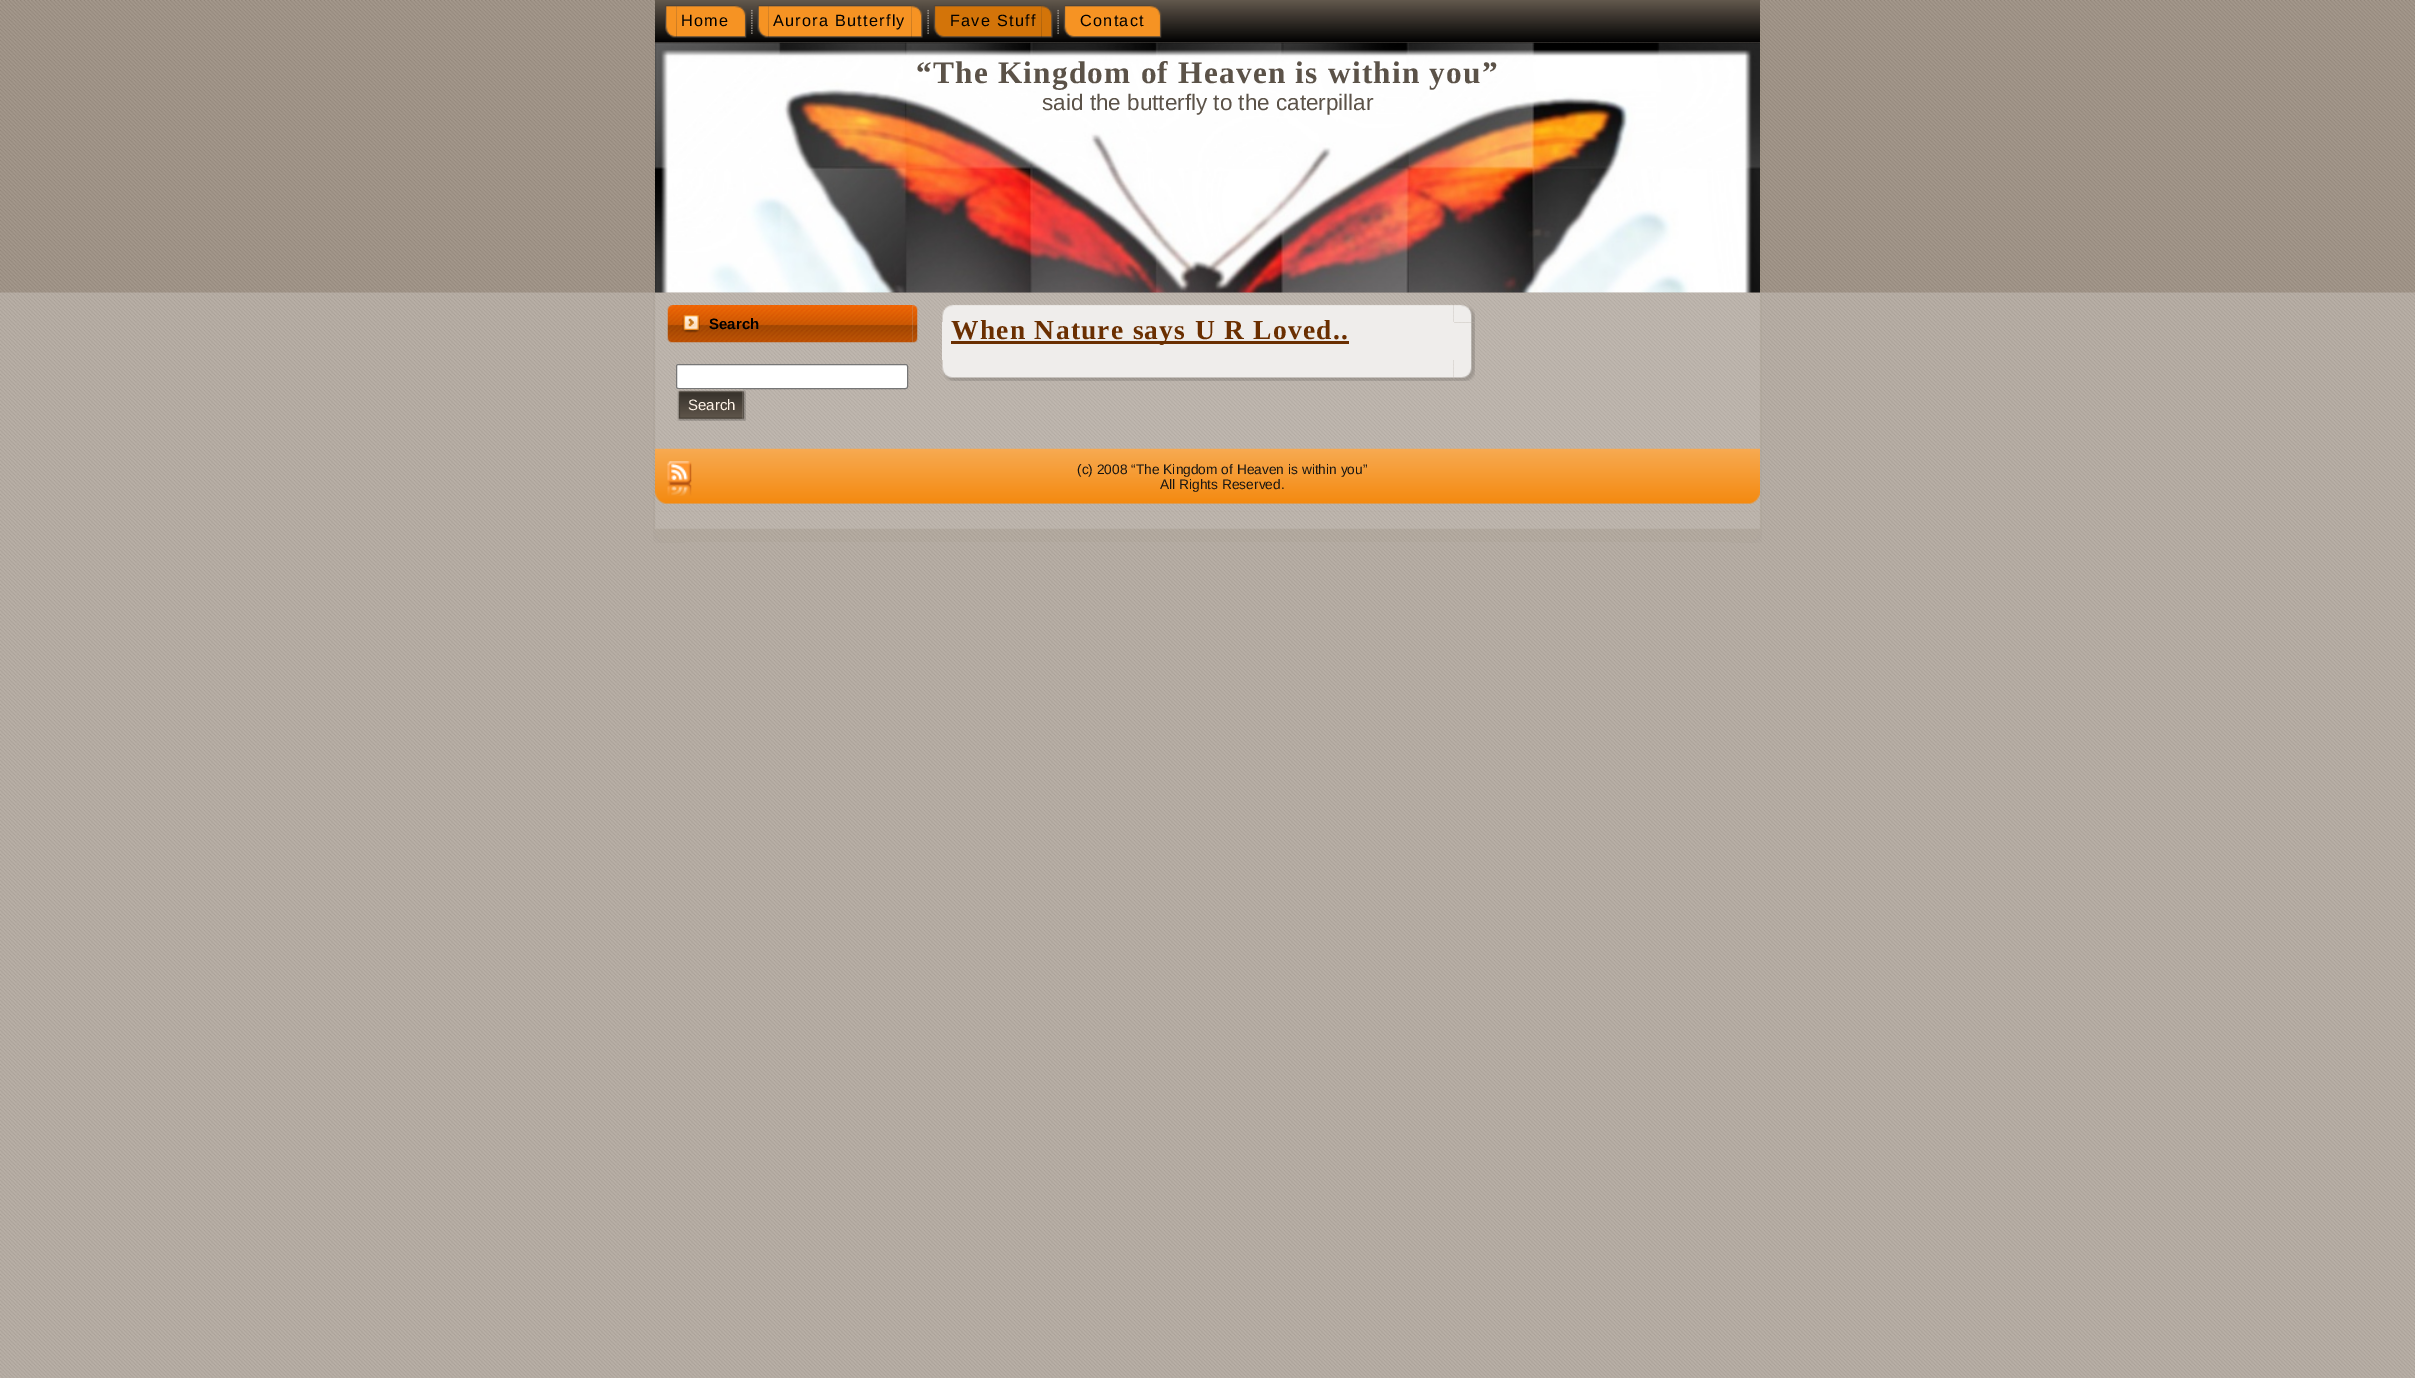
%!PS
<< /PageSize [2415 1378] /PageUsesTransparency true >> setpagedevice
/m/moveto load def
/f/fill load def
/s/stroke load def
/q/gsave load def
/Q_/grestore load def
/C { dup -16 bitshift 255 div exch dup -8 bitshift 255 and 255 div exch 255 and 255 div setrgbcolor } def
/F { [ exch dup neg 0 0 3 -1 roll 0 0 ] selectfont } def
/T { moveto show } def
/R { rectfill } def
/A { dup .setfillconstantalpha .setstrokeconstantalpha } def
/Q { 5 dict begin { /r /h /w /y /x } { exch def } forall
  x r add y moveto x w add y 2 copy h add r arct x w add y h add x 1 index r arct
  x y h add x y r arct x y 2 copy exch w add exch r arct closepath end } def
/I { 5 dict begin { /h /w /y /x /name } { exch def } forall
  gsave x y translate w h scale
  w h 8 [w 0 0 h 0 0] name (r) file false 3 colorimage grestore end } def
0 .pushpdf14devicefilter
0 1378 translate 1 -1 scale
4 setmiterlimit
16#FFFFFF C
0 0 2415 1378 R
(1.rgb) 0 292 2415 1086 I
(2.rgb) 0 0 2415 293 I
(3.rgb) 653 30 32 481 I
(33.rgb) 1730 30 32 481 I
0.1 A
685 42 1045 469 R
1 A
(18.rgb) 655 42 1105 251 I
(4.rgb) 655 0 1105 43 I
(5.rgb) 665 5 12 33 I
(6.rgb) 735 5 12 33 I
(7.rgb) 676 5 59 33 I
/LiberationSans-Regular 16.25 F
16#000000 C
681 26 m 1.25 0 (Home) ashow
(8.rgb) 751 9 2 25 I
(9.rgb) 757 5 12 33 I
(10.rgb) 911 5 12 33 I
(11.rgb) 768 5 144 33 I
773 26 m 1.25 0 (Aurora Butterfly) ashow
(12.rgb) 927 9 2 25 I
(13.rgb) 933 5 12 33 I
(14.rgb) 1041 5 12 33 I
(15.rgb) 945 5 97 33 I
950 26 m 1.25 0 (Fave Stuff) ashow
(12.rgb) 1057 9 2 25 I
(16.rgb) 1063 5 12 33 I
(6.rgb) 1150 5 12 33 I
(17.rgb) 1075 5 75 33 I
1080 26 m 1.25 0 (Contact) ashow
/LiberationSerif-Bold 31.25 F
16#5B5248 C
916 83 m 1.25 0 (“The Kingdom of Heaven is within you”) ashow
/LiberationSans-Regular 22.5 F
(said the butterfly to the caterpillar) 1042 110 T
(19.rgb) 667 305 246 38 I
(20.rgb) 912 305 6 38 I
(21.rgb) 682 315 18 18 I
/LiberationSans-Bold 15 F
16#000000 C
(Search) 709 329 T
16#FFFFFF C
676.5 364.5 231 24 2 Q q f Q_
16#767676 C
s
(23.rgb) 742 390 4 31 I
(22.rgb) 677 389 66 32 I
/LiberationSans-Regular 15 F
16#FEF3E7 C
(Search) 688 410 T
(24.rgb) 942 304 18 18 I
16#EFEDEB C
942 322 512 38 R
(26.rgb) 1453 304 22 19 I
(25.rgb) 960 304 494 18 I
16#6A2F01 C
951 341 398 3 R
/LiberationSerif-Bold 27.5 F
951 339 m 1.25 0 (When Nature says U R Loved..) ashow
(27.rgb) 1454 322 21 38 I
(28.rgb) 942 360 18 21 I
(30.rgb) 1453 360 22 21 I
(29.rgb) 960 360 494 21 I
(31.rgb) 655 448 1105 56 I
(32.rgb) 667 461 25 35 I
/LiberationSans-Regular 13.75 F
16#171512 C
(\(c\) 2008 “The Kingdom of Heaven is within you”) 1077 474 T
(All Rights Reserved.) 1160 489 T
(34.rgb) 653 511 32 32 I
(35.rgb) 685 511 1045 31 I
(36.rgb) 1730 511 32 32 I
.poppdf14devicefilter showpage
